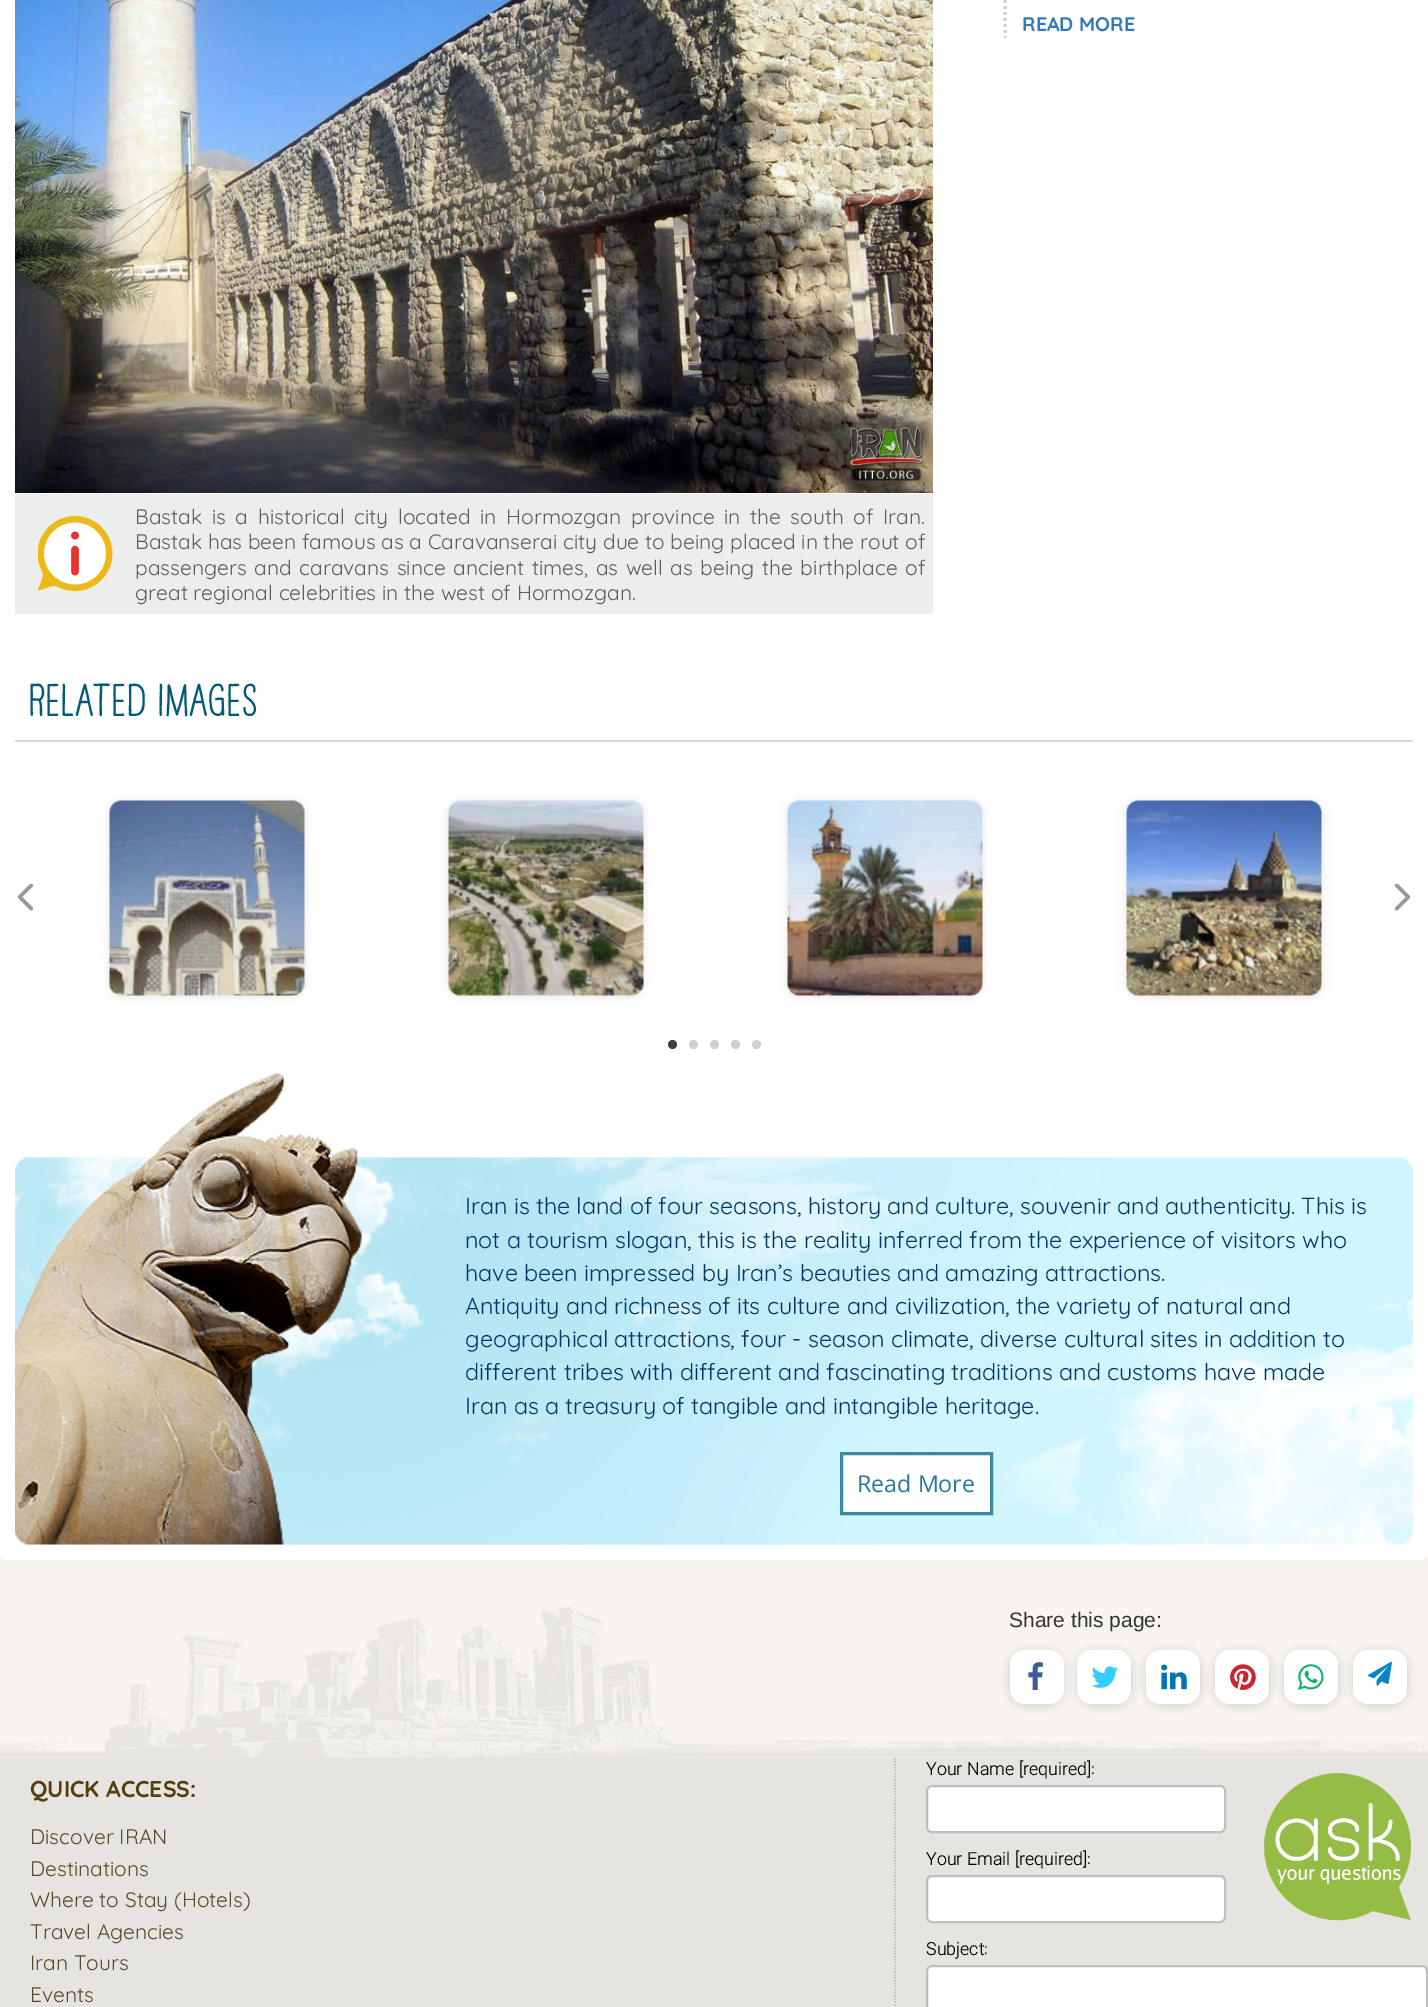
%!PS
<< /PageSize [1428 2007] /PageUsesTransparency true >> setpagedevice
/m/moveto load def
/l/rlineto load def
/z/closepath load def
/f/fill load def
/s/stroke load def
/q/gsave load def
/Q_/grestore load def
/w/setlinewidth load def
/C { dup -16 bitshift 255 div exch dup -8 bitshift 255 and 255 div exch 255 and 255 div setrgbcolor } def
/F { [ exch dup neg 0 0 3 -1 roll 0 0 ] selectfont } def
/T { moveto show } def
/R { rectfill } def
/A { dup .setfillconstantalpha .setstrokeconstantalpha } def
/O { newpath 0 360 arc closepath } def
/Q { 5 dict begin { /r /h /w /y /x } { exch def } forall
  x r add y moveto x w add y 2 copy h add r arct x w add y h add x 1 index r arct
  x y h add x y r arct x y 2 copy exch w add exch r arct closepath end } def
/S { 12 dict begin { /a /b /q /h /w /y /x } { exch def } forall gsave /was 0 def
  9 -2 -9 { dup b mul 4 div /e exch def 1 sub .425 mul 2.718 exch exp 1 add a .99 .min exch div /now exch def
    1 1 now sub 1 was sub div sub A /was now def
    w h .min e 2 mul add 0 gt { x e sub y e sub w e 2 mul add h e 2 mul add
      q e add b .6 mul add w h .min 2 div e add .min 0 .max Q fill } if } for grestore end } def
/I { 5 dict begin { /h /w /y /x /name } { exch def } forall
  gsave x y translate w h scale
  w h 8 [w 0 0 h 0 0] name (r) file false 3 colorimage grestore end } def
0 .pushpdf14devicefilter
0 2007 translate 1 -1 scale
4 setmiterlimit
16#F8F5F1 C
0 0 1428 2007 R
16#FFFFFF C
0 -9 1428 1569 9 Q f
16#CCCCCC C
3 w
[3 3] 0 setdash
1005 -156 m 0 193.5 l s
/Quicksand-Bold 19.75 F
16#337AB7 C
(READ MORE) 1022 31 T
(1.rgb) 15 0 918 493 I
16#EDEDED C
15 494 918 120 R
(2.rgb) 38 516 75 75 I
/Quicksand-Regular 20.9 F
16#5C5C5C C
135 524 m 3.9 0 32 (Bastak is a historical city located in Hormozgan province in the south of Iran.) widthshow
(Bastak has been famous as a Caravanserai city due to being placed in the rout of) 135 549 T
135 575 m 1.9 0 32 (passengers and caravans since ancient times, as well as being the birthplace of) widthshow
(great regional celebrities in the west of Hormozgan.) 135 600 T
16#D9D9D9 C
15 740 1398 2 R
/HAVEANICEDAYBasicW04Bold-Bold 40.5 F
16#005A78 C
30 716 m .75 0 (RELATED IMAGES) ashow
(3.rgb) 17 884 17 27 I
16#040404 C
108 800 198 198 14 4 .07 S
(4.rgb) 109 800 196 196 I
447 800 198 198 14 4 .07 S
(5.rgb) 448 800 196 196 I
786 800 198 198 14 4 .07 S
(6.rgb) 787 800 196 196 I
1125 800 198 198 14 4 .07 S
(7.rgb) 1126 800 196 196 I
16#404040 C
672.5 1044.5 4.5 O f
16#D0D0D0 C
693.5 1044.5 4.5 O f
714.5 1044.5 4.5 O f
735.5 1044.5 4.5 O f
756.5 1044.5 4.5 O f
(8.rgb) 1394 884 17 27 I
(9.rgb) 15 1157 1398 388 I
(10.rgb) 15 1072 1101 473 I
/Quicksand-Regular 23.25 F
16#003765 C
(Iran is the land of four seasons, history and culture, souvenir and authenticity. This is) 465 1214 T
(not a tourism slogan, this is the reality inferred from the experience of visitors who) 465 1248 T
(have been impressed by Iran’s beauties and amazing attractions.) 465 1281 T
(Antiquity and richness of its culture and civilization, the variety of natural and) 465 1314 T
(geographical attractions, four - season climate, diverse cultural sites in addition to) 465 1347 T
(different tribes with different and fascinating traditions and customs have made) 465 1380 T
(Iran as a treasury of tangible and intangible heritage.) 465 1414 T
16#FFFFFF C
841.5 1453.5 m 150 0 l 0 60 l -150 0 l z q f Q_
16#3C8AA2 C
[] 0 setdash
s
/OpenSans-Regular 23.25 F
16#2975A0 C
(Read More) 857 1492 T
(11.rgb) 0 1733 1428 25 I
(12.rgb) 105 1606 566 152 I
/LiberationSans-Regular 21 F
16#333333 C
(Share this page:) 1009 1627 T
16#020202 C
1017 1659 39 39 8 7 .6 S
16#FFFFFF C
1010 1650 54 54 15 Q f
(13.rgb) 1028 1662 15 28 I
16#020202 C
1085 1659 39 39 8 7 .6 S
16#FFFFFF C
1077 1650 54 54 15 Q f
(14.rgb) 1092 1666 26 22 I
16#020202 C
1154 1659 39 39 8 7 .6 S
16#FFFFFF C
1146 1650 54 54 15 Q f
(15.rgb) 1161 1664 26 26 I
16#020202 C
1223 1659 39 39 8 7 .6 S
16#FFFFFF C
1215 1650 54 54 15 Q f
(16.rgb) 1230 1664 26 26 I
16#020202 C
1292 1659 39 39 8 7 .6 S
16#FFFFFF C
1284 1650 54 54 15 Q f
(17.rgb) 1297 1664 27 26 I
16#020202 C
1361 1659 39 39 8 7 .6 S
16#FFFFFF C
1353 1650 54 54 15 Q f
(18.rgb) 1368 1661 24 25 I
16#E6E4E0 C
0 1758 1428 249 R
16#C2BAAA C
1.5 w
[1.5 1.5] 0 setdash
895 1758 m 0 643.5 l s
/Quicksand-Bold 23 F
16#543E10 C
(QUICK ACCESS:) 30 1797 T
/Quicksand-Regular 20.9 F
16#56482D C
(Discover IRAN) 30 1844 T
(Destinations) 30 1876 T
(Where to Stay \(Hotels\)) 30 1907 T
(Travel Agencies) 30 1939 T
(Iran Tours) 30 1970 T
(Events) 30 2002 T
/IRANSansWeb-Light 16.5 F
16#000000 C
(Your Name [required]:) 926 1774 T
16#FFFFFF C
927 1786 298 46 5 Q q f Q_
16#BFBFBF C
2 w
[] 0 setdash
s
(19.rgb) 1263 1773 148 148 I
16#000000 C
(Your Email [required]:) 926 1864 T
16#FFFFFF C
927 1876 298 46 5 Q q f Q_
16#BFBFBF C
s
16#000000 C
(Subject:) 926 1954 T
16#FFFFFF C
927 1966 500 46 5 Q q f Q_
16#BFBFBF C
s
.poppdf14devicefilter showpage
